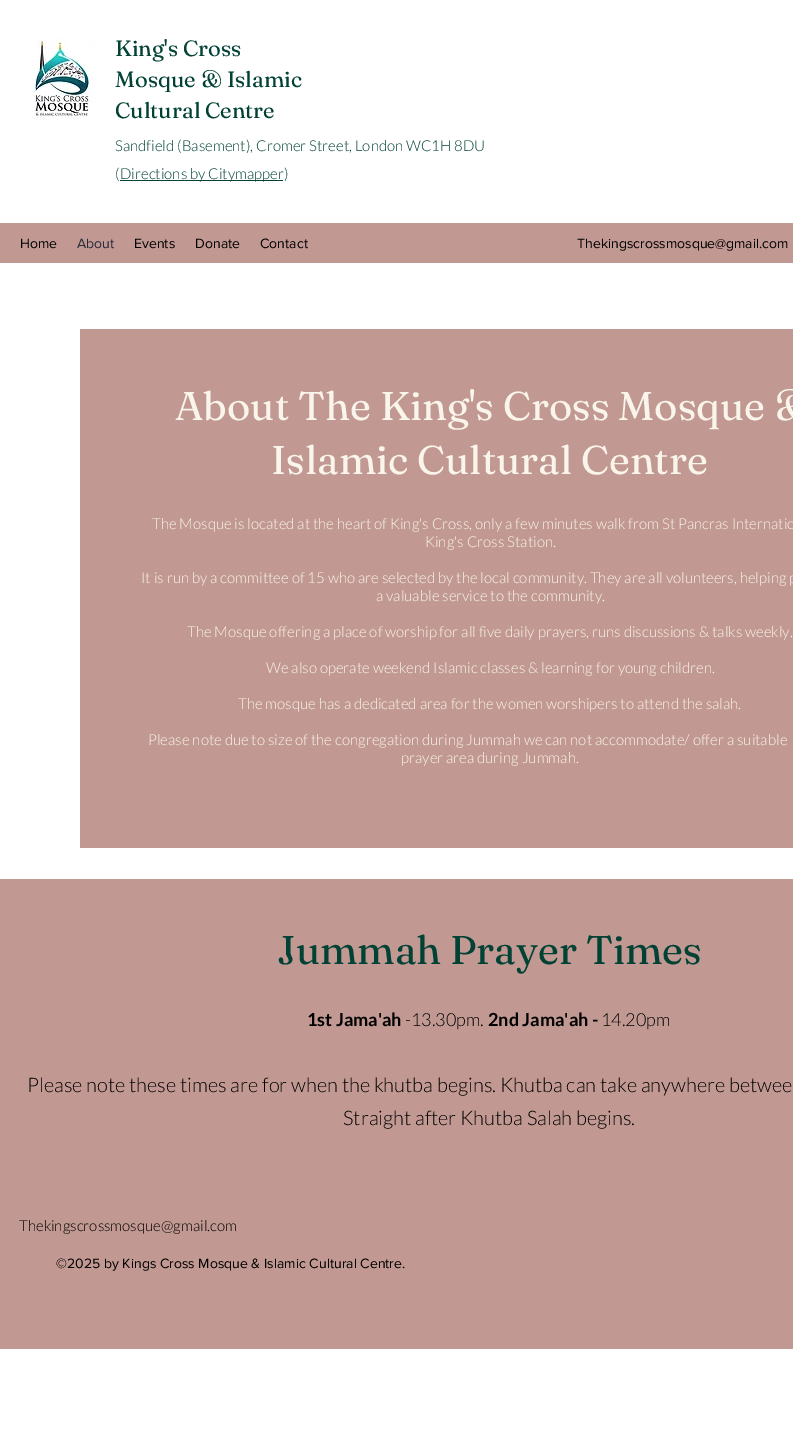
%!PS
<< /PageSize [793 1437] >> setpagedevice
/C { dup -16 bitshift 255 div exch dup -8 bitshift 255 and 255 div exch 255 and 255 div setrgbcolor } def
/F { [ exch dup neg 0 0 3 -1 roll 0 0 ] selectfont } def
/T { moveto show } def
/R { rectfill } def
/I { 5 dict begin { /h /w /y /x /name } { exch def } forall
  gsave x y translate w h scale
  w h 8 [w 0 0 h 0 0] name (r) file false 3 colorimage grestore end } def
0 1437 translate 1 -1 scale
4 setmiterlimit
16#FFFFFF C
0 0 793 1437 R
(1.rgb) 31 39 63 80 I
/Fraunces-Regular 22 F
16#014235 C
(King's Cross) 115 56 T
(Mosque & Islamic) 115 87 T
(Cultural Centre) 115 118 T
/Lato-Light 15 F
(Sandfield \(Basement\), Cromer Street, London WC1H 8DU) 115 151 T
(\() 115 179 T
120 180 163 1 R
(Directions by Citymapper\)) 120 179 T
16#C29992 C
0 223 793 40 R
/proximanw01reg-Regular 14 F
16#000000 C
(Home) 20 248 T
16#262B3B C
(About) 77 248 T
16#000000 C
(Events) 134 248 T
(Donate) 195 248 T
(Contact) 260 248 T
(Thekingscrossmosque@gmail.com) 577 248 T
16#C29992 C
80 329 713 519 R
/Fraunces-Regular 40 F
16#FAF5EB C
(About The King's Cross Mosque &) 175 420 T
(Islamic Cultural Centre) 271 474 T
/Lato-Light 15 F
(The Mosque is located at the heart of King's Cross, only a few minutes walk from St Pancras Internatio) 152 529 T
(King's Cross Station.) 425 547 T
(It is run by a committee of 15 who are selected by the local community. They are all volunteers, helping p) 141 583 T
(a valuable service to the community.) 376 601 T
(The Mosque offering a place of worship for all five daily prayers, runs discussions & talks weekly.) 187 637 T
(We also operate weekend Islamic classes & learning for young children.) 266 673 T
(The mosque has a dedicated area for the women worshipers to attend the salah.) 238 709 T
(Please note due to size of the congregation during Jummah we can not accommodate/ offer a suitable) 148 745 T
(prayer area during Jummah.) 401 763 T
16#C29992 C
0 879 793 470 R
/Fraunces-Regular 40 F
16#014235 C
(Jummah Prayer Times) 277 964 T
/Lato-Bold 18 F
16#000000 C
(1st Jama'ah) 307 1026 T
/Lato-Light 18 F
(-13.30pm.) 405 1026 T
/Lato-Bold 18 F
(2nd Jama'ah -) 488 1026 T
/Lato-Light 18 F
(14.20pm) 601 1026 T
/Lato-Light 20 F
(Please note these times are for when the khutba begins. Khutba can take anywhere betwee) 27 1092 T
(Straight after Khutba Salah begins.) 343 1125 T
/Lato-Light 15 F
(Thekingscrossmosque@gmail.com) 19 1231 T
/proximanw01reg-Regular 14 F
(©2025 by Kings Cross Mosque & Islamic Cultural Centre.) 56 1268 T
showpage
